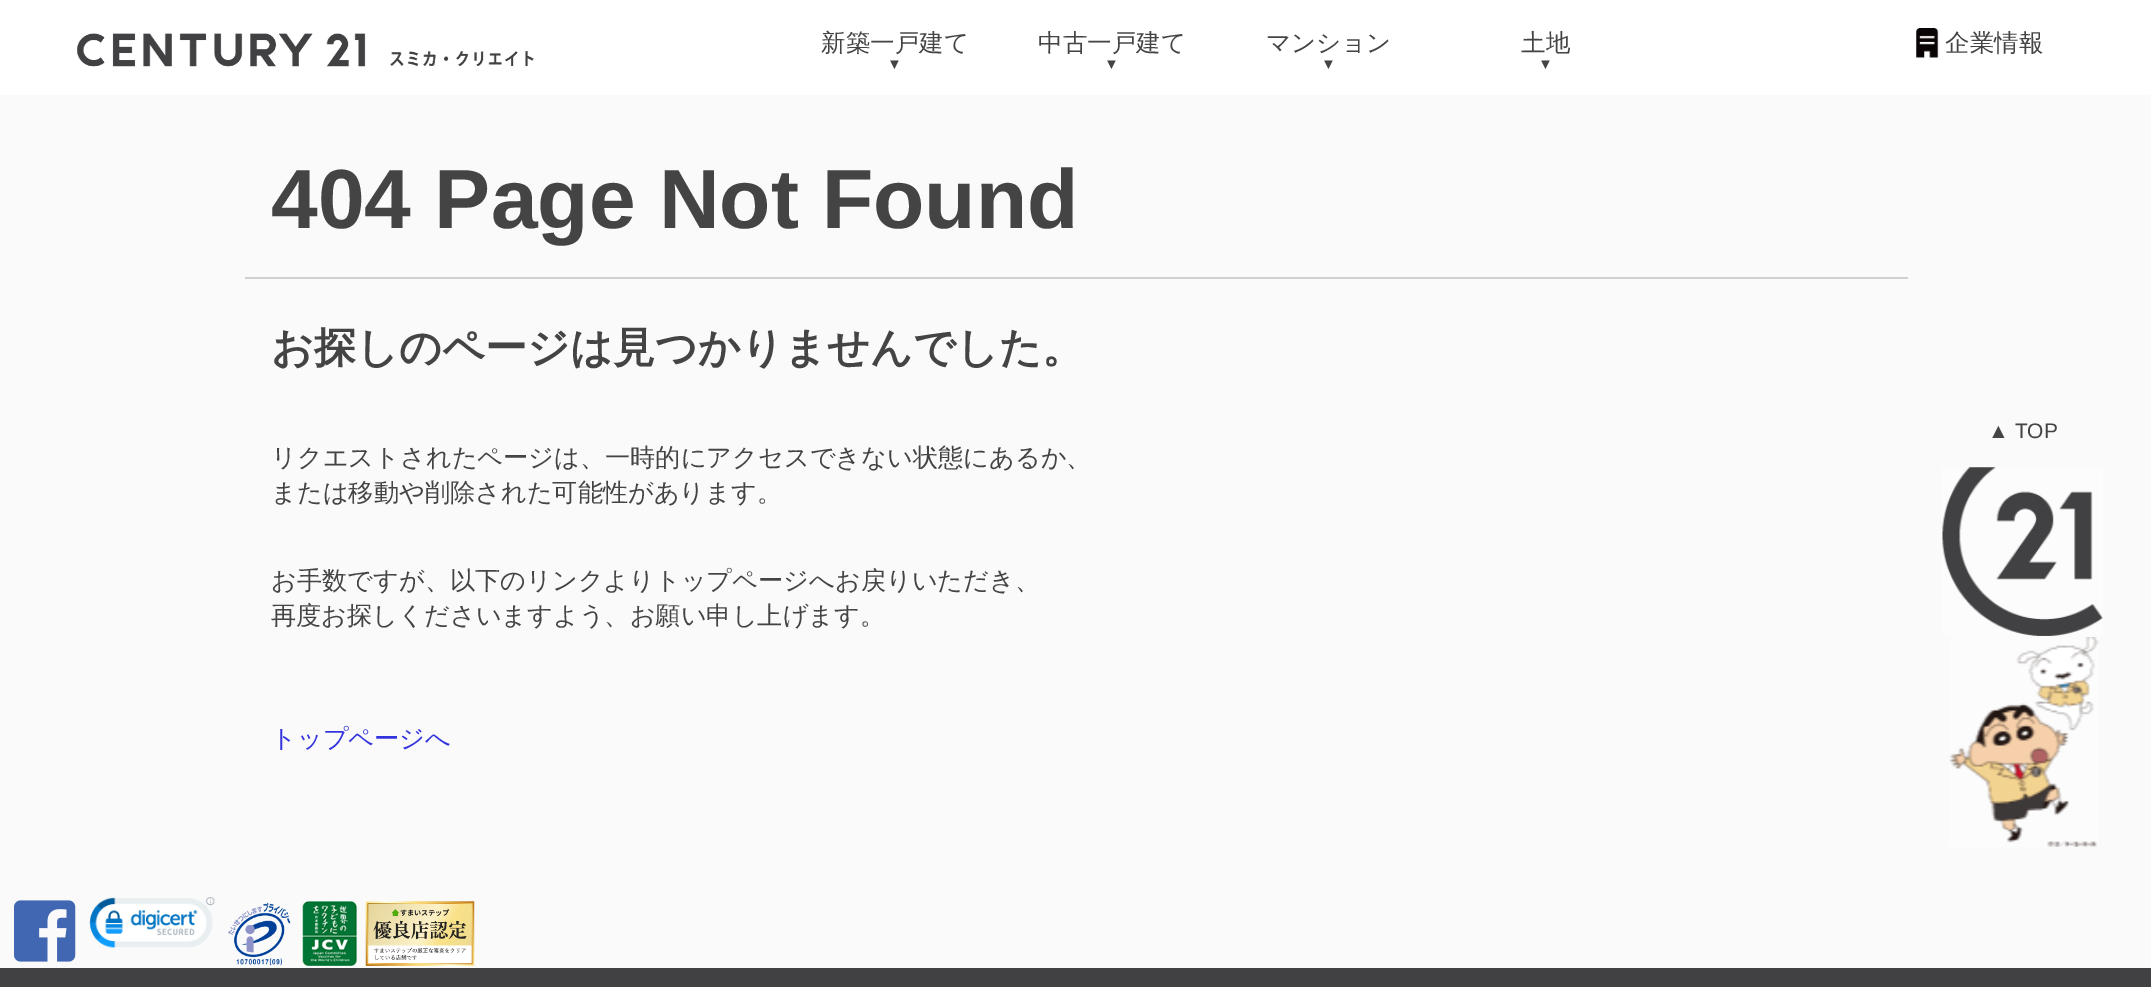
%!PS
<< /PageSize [2151 987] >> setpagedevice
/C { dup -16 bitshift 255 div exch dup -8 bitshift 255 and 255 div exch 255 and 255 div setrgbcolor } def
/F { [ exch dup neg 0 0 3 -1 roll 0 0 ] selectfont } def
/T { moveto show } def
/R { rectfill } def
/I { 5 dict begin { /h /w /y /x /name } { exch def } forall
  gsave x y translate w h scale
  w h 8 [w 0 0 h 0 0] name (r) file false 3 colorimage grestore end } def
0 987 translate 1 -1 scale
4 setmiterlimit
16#FAFAFA C
0 0 2151 987 R
16#FFFFFF C
0 0 2151 95 R
(1.rgb) 77 33 457 34 I
/WenQuanYiZenHei-Medium 24.5 F
16#444444 C
(新築一戸建て) 821 51 T
/LiberationSans-Regular 15 F
(▼) 887 69 T
/WenQuanYiZenHei-Medium 24.5 F
(中古一戸建て) 1038 51 T
/LiberationSans-Regular 15 F
(▼) 1104 69 T
/WenQuanYiZenHei-Medium 24.5 F
(マンション) 1266 51 T
/LiberationSans-Regular 15 F
(▼) 1321 69 T
/WenQuanYiZenHei-Medium 24.5 F
(土地) 1521 51 T
/LiberationSans-Regular 15 F
(▼) 1538 69 T
(2.rgb) 1916 28 23 30 I
/WenQuanYiZenHei-Medium 24.5 F
(企業情報) 1945 51 T
16#D0D0D0 C
245 277 1663 2 R
/LiberationSans-Bold 84 F
16#444444 C
(404 Page Not Found) 271 228 T
/WenQuanYiZenHei-Bold 42 F
(お探しのページは見つかりませんでした。) 271 362 T
/WenQuanYiZenHei-Medium 25.2 F
(リクエストされたページは、一時的にアクセスできない状態にあるか、) 271 466 T
(または移動や削除された可能性があります。) 271 501 T
(お手数ですが、以下のリンクよりトップページへお戻りいただき、) 271 589 T
(再度お探しくださいますよう、お願い申し上げます。) 271 624 T
16#3333DD C
(トップページへ) 271 747 T
/LiberationSans-Regular 21 F
16#444444 C
(▲ TOP) 1988 438 T
(3.rgb) 1942 467 161 169 I
(4.rgb) 1949 637 150 210 I
(5.rgb) 14 900 62 62 I
(6.rgb) 89 897 126 51 I
(7.rgb) 228 902 63 64 I
(8.rgb) 302 901 55 65 I
(9.rgb) 365 901 110 65 I
16#414042 C
0 968 2151 19 R
showpage
